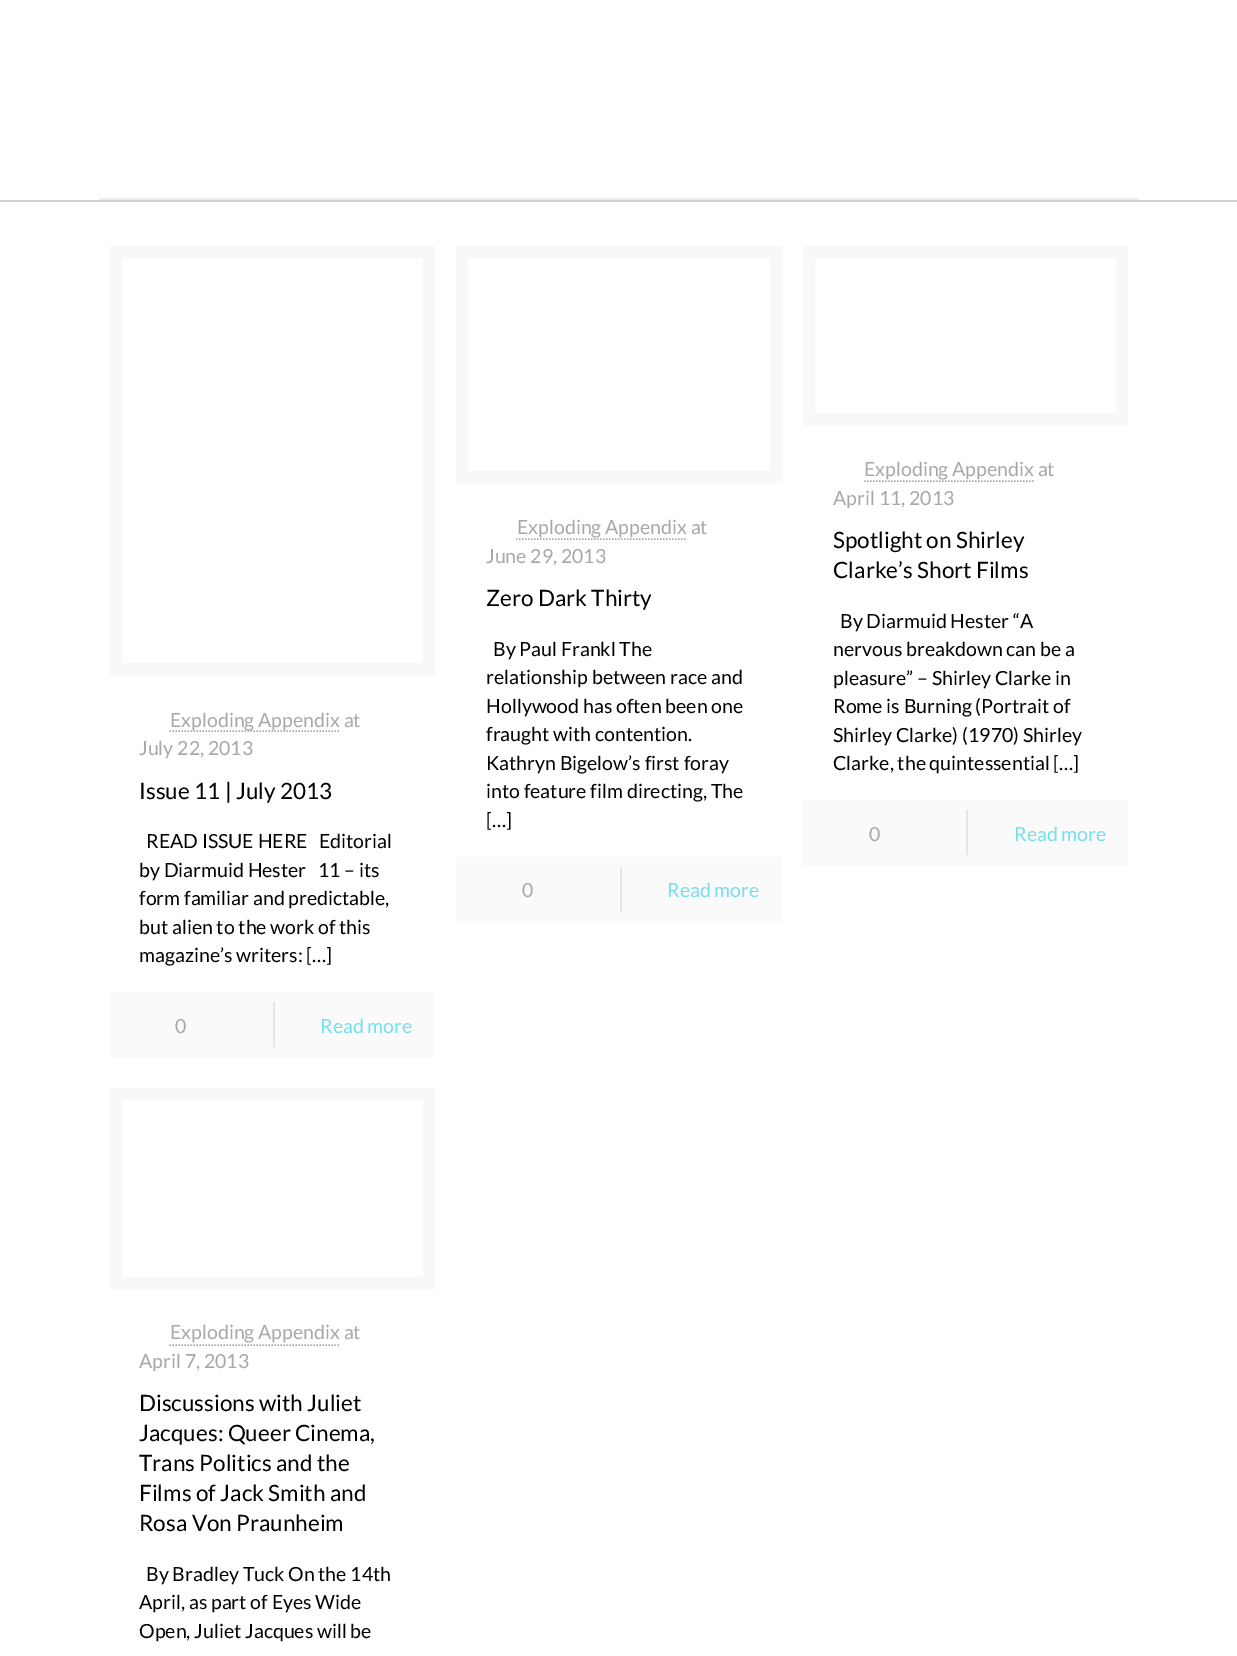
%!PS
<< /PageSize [1237 1656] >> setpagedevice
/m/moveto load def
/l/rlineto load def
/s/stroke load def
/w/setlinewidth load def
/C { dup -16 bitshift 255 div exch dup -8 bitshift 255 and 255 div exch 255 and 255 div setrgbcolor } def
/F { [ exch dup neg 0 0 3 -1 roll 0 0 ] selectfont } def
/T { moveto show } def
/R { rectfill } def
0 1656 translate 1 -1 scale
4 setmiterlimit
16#FFFFFF C
0 0 1237 1656 R
16#D3D3D3 C
0 200 1237 2 R
16#EBEBEB C
99 198 1040 2 R
16#F8F8F8 C
12 w
116 252 313 417 rectstroke
16#A8A8A8 C
1.5 w
[1.5 1.5] 0 setdash
169.5 731 m 169.5 0 l s
/Lato-Regular 19.5 F
(Exploding Appendix at) 170 727 T
(July 22, 2013) 139 755 T
/Lato-Regular 22.5 F
16#000000 C
(Issue 11 | July 2013) 139 799 T
/Lato-Regular 19.5 F
(READ ISSUE HERE   Editorial) 146 848 T
(by Diarmuid Hester   11 – its) 139 877 T
(form familiar and predictable,) 139 905 T
(but alien to the work of this) 139 934 T
(magazine’s writers: […]) 139 962 T
16#FAFAFA C
110 992 325 66 R
16#A8A8A8 C
(0) 175 1033 T
16#E6E6E6 C
273 1002 2 45 R
16#75DFEF C
(Read more) 320 1033 T
16#F8F8F8 C
12 w
[] 0 setdash
462 252 314 225 rectstroke
16#A8A8A8 C
(Exploding Appendix at) 517 534 T
1.5 w
[1.5 1.5] 0 setdash
516 539 m 171 0 l s
(June 29, 2013) 486 563 T
/Lato-Regular 22.5 F
16#000000 C
(Zero Dark Thirty) 486 606 T
/Lato-Regular 19.5 F
(By Paul Frankl The) 493 656 T
(relationship between race and) 486 684 T
(Hollywood has often been one) 486 713 T
(fraught with contention.) 486 741 T
(Kathryn Bigelow’s first foray) 486 770 T
(into feature film directing, The) 486 798 T
([…]) 486 827 T
16#FAFAFA C
456 857 326 66 R
16#A8A8A8 C
(0) 522 897 T
16#E6E6E6 C
620 867 2 45 R
16#75DFEF C
(Read more) 667 897 T
16#F8F8F8 C
12 w
[] 0 setdash
809 252 313 167 rectstroke
16#A8A8A8 C
(Exploding Appendix at) 864 476 T
1.5 w
[1.5 1.5] 0 setdash
864 481 m 169.5 0 l s
(April 11, 2013) 833 505 T
/Lato-Regular 22.5 F
16#000000 C
(Spotlight on Shirley) 833 548 T
(Clarke’s Short Films) 833 578 T
/Lato-Regular 19.5 F
(By Diarmuid Hester “A) 840 628 T
(nervous breakdown can be a) 833 656 T
(pleasure” – Shirley Clarke in) 833 685 T
(Rome is Burning \(Portrait of) 833 713 T
(Shirley Clarke\) \(1970\) Shirley) 833 742 T
(Clarke, the quintessential […]) 833 770 T
16#FAFAFA C
803 800 325 66 R
16#A8A8A8 C
(0) 869 841 T
16#E6E6E6 C
966 810 2 45 R
16#75DFEF C
(Read more) 1014 841 T
16#F8F8F8 C
12 w
[] 0 setdash
116 1094 313 189 rectstroke
16#A8A8A8 C
(Exploding Appendix at) 170 1339 T
1.5 w
[1.5 1.5] 0 setdash
169.5 1345 m 169.5 0 l s
(April 7, 2013) 139 1368 T
/Lato-Regular 22.5 F
16#000000 C
(Discussions with Juliet) 139 1411 T
(Jacques: Queer Cinema,) 139 1441 T
(Trans Politics and the) 139 1471 T
(Films of Jack Smith and) 139 1501 T
(Rosa Von Praunheim) 139 1531 T
/Lato-Regular 19.5 F
(By Bradley Tuck On the 14th) 146 1581 T
(April, as part of Eyes Wide) 139 1609 T
(Open, Juliet Jacques will be) 139 1638 T
showpage
